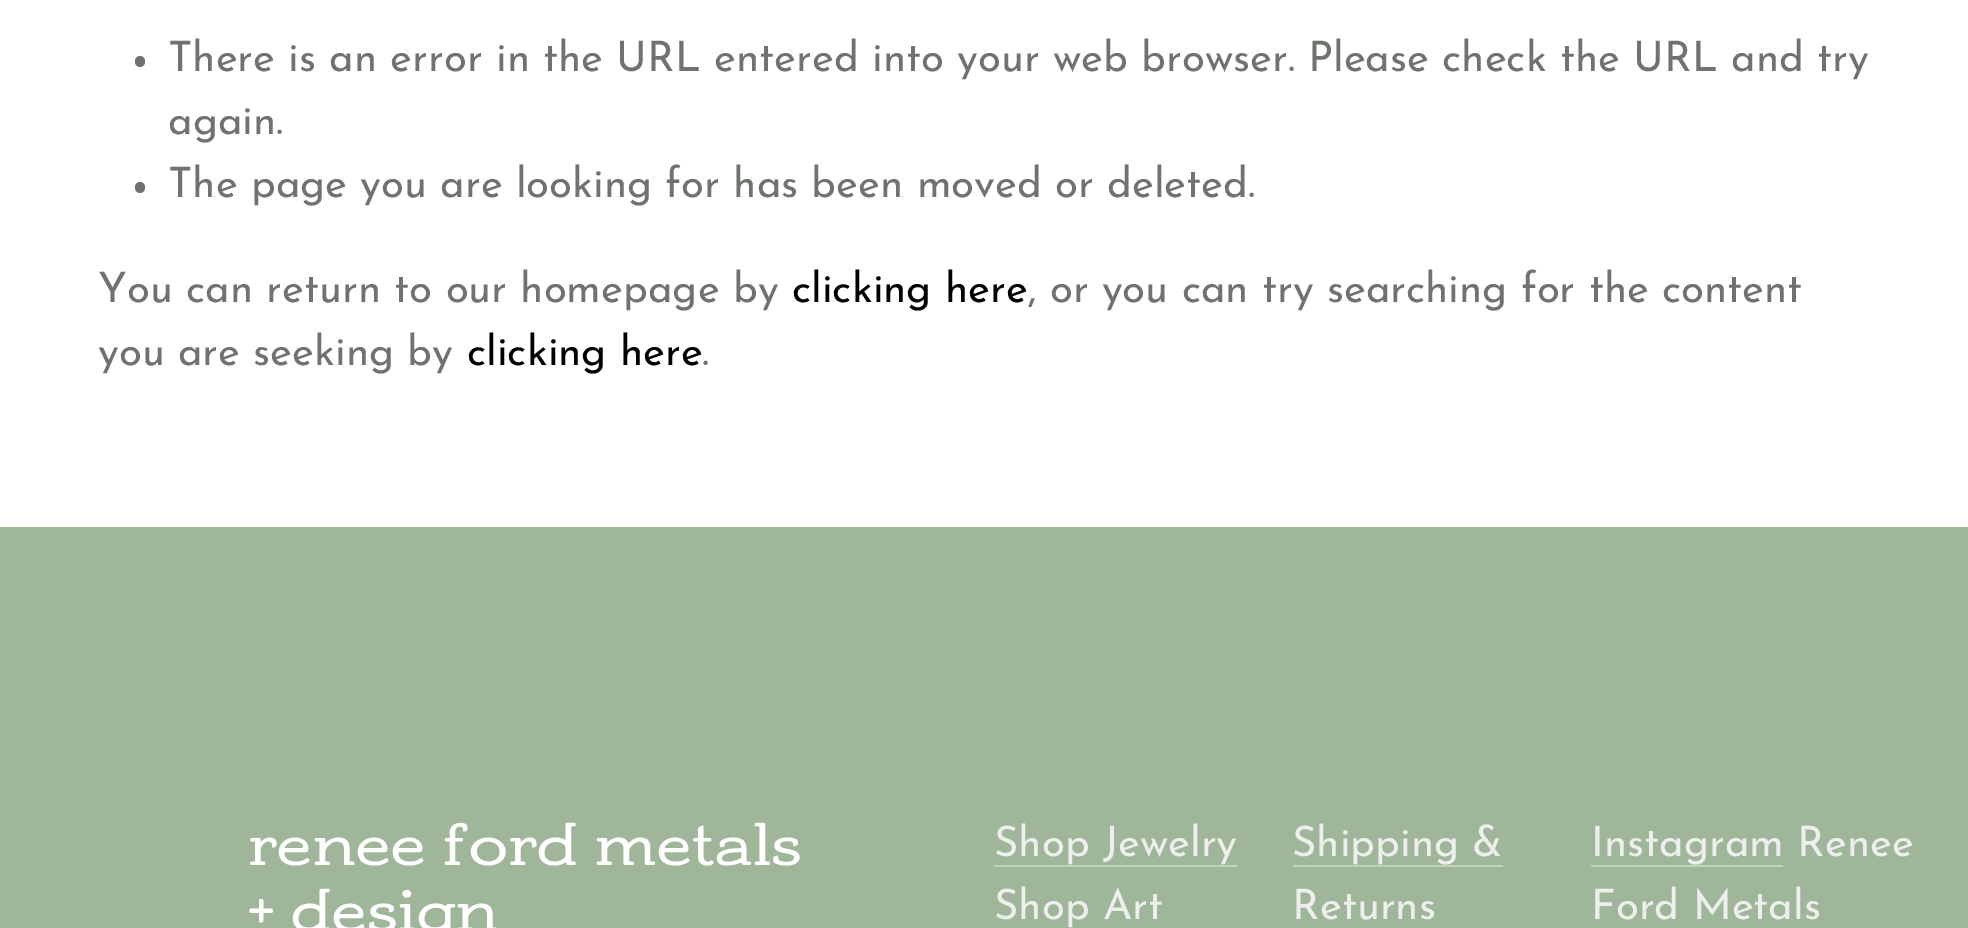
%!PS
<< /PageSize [1968 928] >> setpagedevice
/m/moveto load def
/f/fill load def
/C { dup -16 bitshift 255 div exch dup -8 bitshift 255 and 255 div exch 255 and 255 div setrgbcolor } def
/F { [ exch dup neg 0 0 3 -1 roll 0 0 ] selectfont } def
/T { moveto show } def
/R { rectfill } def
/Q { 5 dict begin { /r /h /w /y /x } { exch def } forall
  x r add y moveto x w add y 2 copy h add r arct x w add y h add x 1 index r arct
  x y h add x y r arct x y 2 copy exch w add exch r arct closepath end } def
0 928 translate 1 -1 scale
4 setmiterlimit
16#FFFFFF C
0 0 1968 928 R
16#6E746D C
135 56 10 11 5 Q f
/JosefinSans-Regular 42 F
(There is an error in the URL entered into your web browser. Please check the URL and try) 168 71 T
(again.) 168 134 T
135 182 10 11 5 Q f
(The page you are looking for has been moved or deleted.) 168 197 T
(You can return to our homepage by) 98 302 T
16#000000 C
(clicking here) 792 302 T
16#6E746D C
(, or you can try searching for the content) 1028 302 T
(you are seeking by) 98 365 T
16#000000 C
(clicking here) 467 365 T
16#6E746D C
(.) 702 365 T
16#A0B69A C
0 527 1968 401 R
/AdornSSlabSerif-Regular 56.25 F
16#FFFFFF C
248 865 m -1.1 0 (renee ford metals) ashow
248 931 m -1.1 0 (+ design) ashow
/JosefinSans-Regular 42 F
16#EDEFEC C
(Shop Jewelry) 994 856 T
16#BED4B9 C
994 865 243 2 R
16#EDEFEC C
(Shop Art) 994 919 T
(Shipping &) 1292 856 T
16#BED4B9 C
1293 865 210 2 R
16#EDEFEC C
(Returns) 1292 919 T
(Instagram Renee) 1591 856 T
16#BED4B9 C
1591 865 192 2 R
16#EDEFEC C
(Ford Metals) 1591 919 T
showpage
